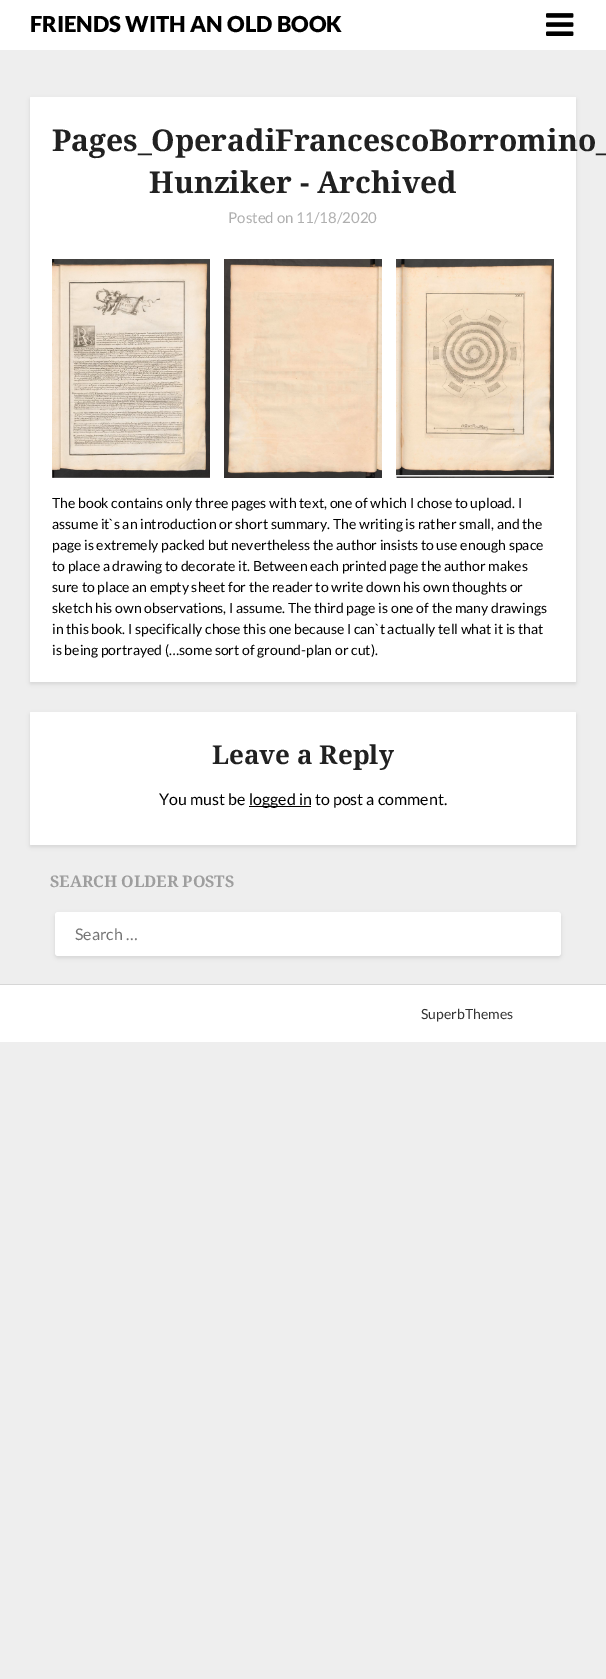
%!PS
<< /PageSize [606 1679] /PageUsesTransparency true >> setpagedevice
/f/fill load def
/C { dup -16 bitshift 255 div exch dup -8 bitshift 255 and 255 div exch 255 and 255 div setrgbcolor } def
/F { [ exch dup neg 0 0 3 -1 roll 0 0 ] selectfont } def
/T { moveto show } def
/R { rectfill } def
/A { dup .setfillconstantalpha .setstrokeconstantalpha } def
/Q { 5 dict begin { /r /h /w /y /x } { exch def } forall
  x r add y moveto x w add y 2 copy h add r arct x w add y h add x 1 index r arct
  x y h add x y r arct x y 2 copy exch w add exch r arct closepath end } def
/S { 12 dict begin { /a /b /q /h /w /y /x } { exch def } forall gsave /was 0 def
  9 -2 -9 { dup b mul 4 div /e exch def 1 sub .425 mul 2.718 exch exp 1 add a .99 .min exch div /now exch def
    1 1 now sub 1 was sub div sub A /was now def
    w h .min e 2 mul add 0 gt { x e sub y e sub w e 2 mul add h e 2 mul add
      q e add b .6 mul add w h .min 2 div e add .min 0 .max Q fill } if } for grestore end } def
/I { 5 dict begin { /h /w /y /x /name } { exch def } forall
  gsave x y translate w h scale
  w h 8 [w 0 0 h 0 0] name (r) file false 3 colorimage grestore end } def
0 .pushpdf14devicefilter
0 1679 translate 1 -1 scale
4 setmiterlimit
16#EEEEEE C
0 0 606 1679 R
16#FFFFFF C
0 0 606 50 R
/Lato-Black 22 F
16#000000 C
(FRIENDS WITH AN OLD BOOK) 30 32 T
(1.rgb) 546 13 28 23 I
30 99 546 585 1 2 .1 S
16#FFFFFF C
30 97 546 585 1 Q f
/NotoSerif-Bold 30 F
16#212121 C
(Pages_OperadiFrancescoBorromino_) 52 151 T
(Hunziker - Archived) 149 193 T
/Lato-Regular 15 F
16#AFAFAF C
(Posted on 11/18/2020) 228 223 T
(2.rgb) 52 259 158 219 I
(3.rgb) 224 259 158 219 I
(4.rgb) 396 259 158 219 I
/Lato-Regular 14 F
16#000000 C
(The book contains only three pages with text, one of which I chose to upload. I) 52 508 T
(assume it`s an introduction or short summary. The writing is rather small, and the) 52 529 T
(page is extremely packed but nevertheless the author insists to use enough space) 52 550 T
(to place a drawing to decorate it. Between each printed page the author makes) 52 571 T
(sure to place an empty sheet for the reader to write down his own thoughts or) 52 592 T
(sketch his own observations, I assume. The third page is one of the many drawings) 52 613 T
(in this book. I specifically chose this one because I can`t actually tell what it is that) 52 634 T
(is being portrayed \(…some sort of ground-plan or cut\).) 52 655 T
30 714 546 133 1 2 .1 S
16#FFFFFF C
30 712 546 133 1 Q f
/NotoSerif-Bold 26 F
16#212121 C
(Leave a Reply) 212 764 T
/Lato-Regular 16 F
16#000000 C
(You must be) 159 805 T
249 806 62 1 R
(logged in to post a comment.) 249 805 T
/NotoSerif-Bold 16 F
16#9E9E9E C
(SEARCH OLDER POSTS) 50 887 T
16#000000 C
55 914 506 44 3 2 .1 S
16#FFFFFF C
55 912 506 44 3 Q f
/Lato-Regular 16 F
16#757575 C
(Search …) 75 940 T
16#FFFFFF C
0 985 606 57 R
16#D6D6D6 C
0 984 606 1 R
/Lato-Regular 14 F
16#333333 C
(SuperbThemes) 421 1019 T
.poppdf14devicefilter showpage
